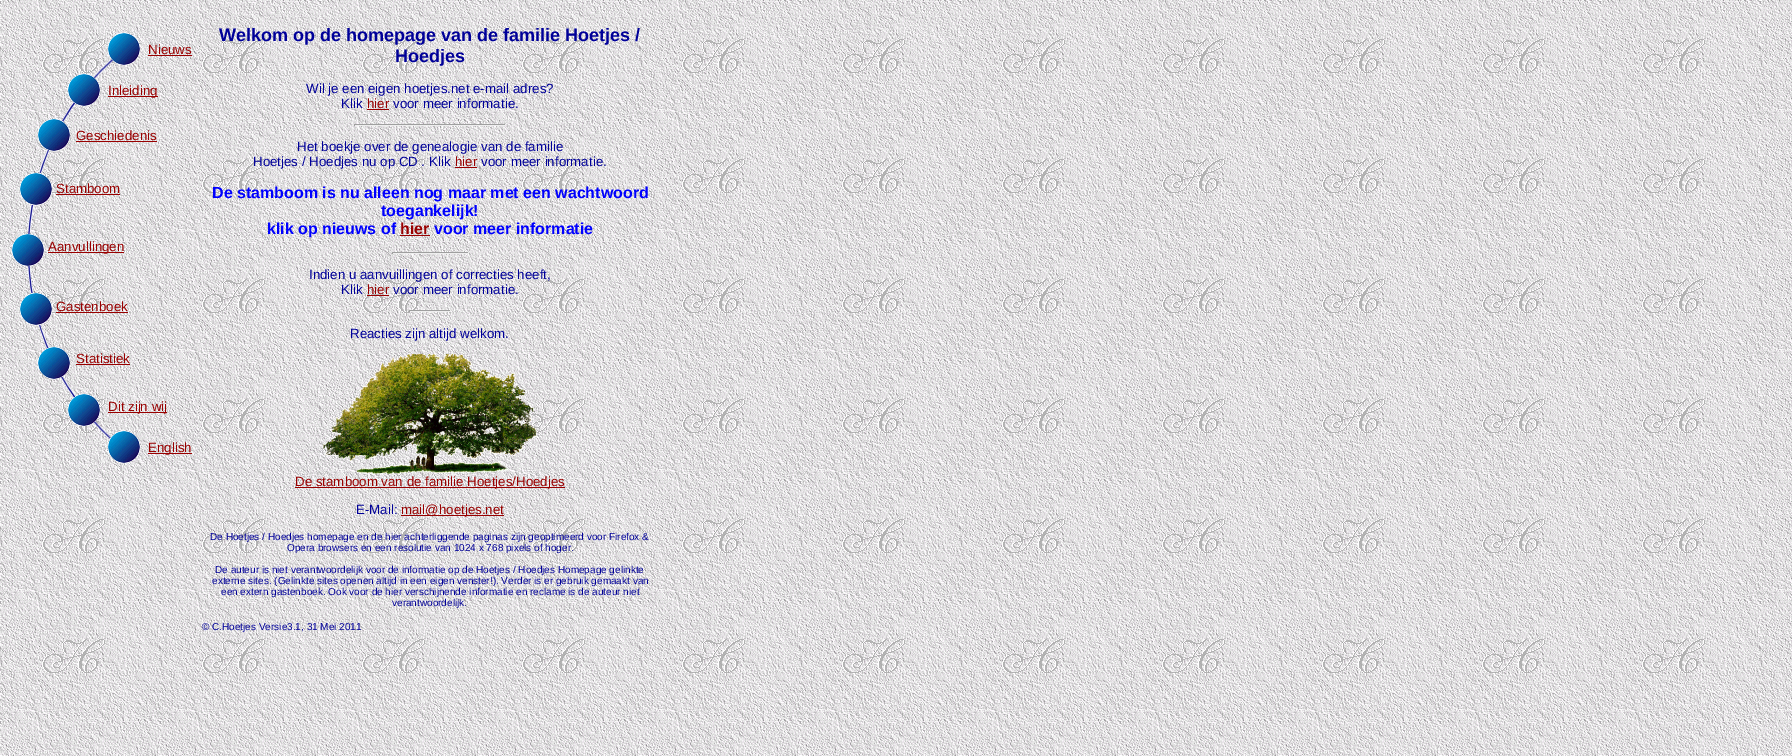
%!PS
<< /PageSize [1792 756] >> setpagedevice
/C { dup -16 bitshift 255 div exch dup -8 bitshift 255 and 255 div exch 255 and 255 div setrgbcolor } def
/F { [ exch dup neg 0 0 3 -1 roll 0 0 ] selectfont } def
/T { moveto show } def
/R { rectfill } def
/I { 5 dict begin { /h /w /y /x /name } { exch def } forall
  gsave x y translate w h scale
  w h 8 [w 0 0 h 0 0] name (r) file false 3 colorimage grestore end } def
0 756 translate 1 -1 scale
4 setmiterlimit
16#FFFFFF C
0 0 1792 756 R
(1.rgb) 0 0 1792 756 I
(4.rgb) 28 59 85 381 I
(2.rgb) 108 33 32 32 I
/LiberationSans-Regular 13.3 F
16#990000 C
(Nieuws) 148 54 T
148 55 44 1 R
/LiberationSans-Bold 18 F
16#000099 C
(Welkom op de homepage van de familie Hoetjes /) 219 41 T
(Hoedjes) 395 62 T
/LiberationSans-Regular 13.3 F
(Wil je een eigen hoetjes.net e-mail adres?) 306 93 T
(Klik) 341 108 T
16#990000 C
(hier) 367 108 T
367 109 22 1 R
16#000099 C
(voor meer informatie.) 393 108 T
16#9F9F9F C
354 124 152 1 R
16#EEEEEE C
505 124 1 2 R
354 125 152 1 R
16#9F9F9F C
354 124 1 2 R
16#000099 C
(Het boekje over de genealogie van de familie) 297 151 T
(Hoetjes / Hoedjes nu op CD . Klik) 253 166 T
16#990000 C
(hier) 455 166 T
455 167 22 1 R
16#000099 C
(voor meer informatie.) 481 166 T
/LiberationSans-Bold 16 F
16#0000FF C
(De stamboom is nu alleen nog maar met een wachtwoord) 212 198 T
(toegankelijk!) 381 216 T
(klik op nieuws of) 267 234 T
16#990000 C
(hier) 400 234 T
400 235 30 1 R
16#0000FF C
(voor meer informatie) 434 234 T
16#9F9F9F C
392 252 77 1 R
16#EEEEEE C
468 252 1 2 R
392 253 77 1 R
16#9F9F9F C
392 252 1 2 R
/LiberationSans-Regular 13.3 F
16#000099 C
(Indien u aanvuillingen of correcties heeft,) 309 279 T
(Klik) 341 294 T
16#990000 C
(hier) 367 294 T
367 295 22 1 R
16#000099 C
(voor meer informatie.) 393 294 T
16#9F9F9F C
409 310 42 1 R
16#EEEEEE C
450 310 1 2 R
409 311 42 1 R
16#9F9F9F C
409 310 1 2 R
16#000099 C
(Reacties zijn altijd welkom.) 350 338 T
(3.rgb) 323 354 214 120 I
16#990000 C
295 487 270 1 R
(De stamboom van de familie Hoetjes/Hoedjes) 295 486 T
16#000099 C
(E-Mail:) 356 514 T
16#990000 C
401 515 103 1 R
(mail@hoetjes.net) 401 514 T
/LiberationSans-Regular 10 F
16#000099 C
(De Hoetjes / Hoedjes homepage en de hier achterliggende paginas zijn geoptimeerd voor Firefox &) 210 540 T
(Opera browsers en een resolutie van 1024 x 768 pixels of hoger.) 287 551 T
(De auteur is niet verantwoordelijk voor de informatie op de Hoetjes / Hoedjes Homepage gelinkte) 215 573 T
(externe sites. \(Gelinkte sites openen altijd in een eigen venster!\). Verder is er gebruik gemaakt van) 212 584 T
(een extern gastenboek. Ook voor de hier verschijnende informatie en reclame is de auteur niet) 221 595 T
(verantwoordelijk.) 392 606 T
(© C.Hoetjes Versie3.1, 31 Mei 2011) 202 630 T
(5.rgb) 68 74 32 32 I
16#990000 C
108 96 50 1 R
/LiberationSans-Regular 13.3 F
(Inleiding) 108 95 T
(6.rgb) 38 119 32 32 I
(Geschiedenis) 76 140 T
76 141 81 1 R
(7.rgb) 20 173 32 32 I
(Stamboom) 56 193 T
56 194 64 1 R
(8.rgb) 12 234 32 32 I
48 252 76 1 R
(Aanvullingen) 48 251 T
(9.rgb) 20 293 32 32 I
(Gastenboek) 56 311 T
56 312 72 1 R
(10.rgb) 38 347 32 32 I
(Statistiek) 76 363 T
76 364 54 1 R
(11.rgb) 68 394 32 32 I
108 412 59 1 R
(Dit zijn wij) 108 411 T
(12.rgb) 108 431 32 32 I
148 453 44 1 R
(English) 148 452 T
showpage
